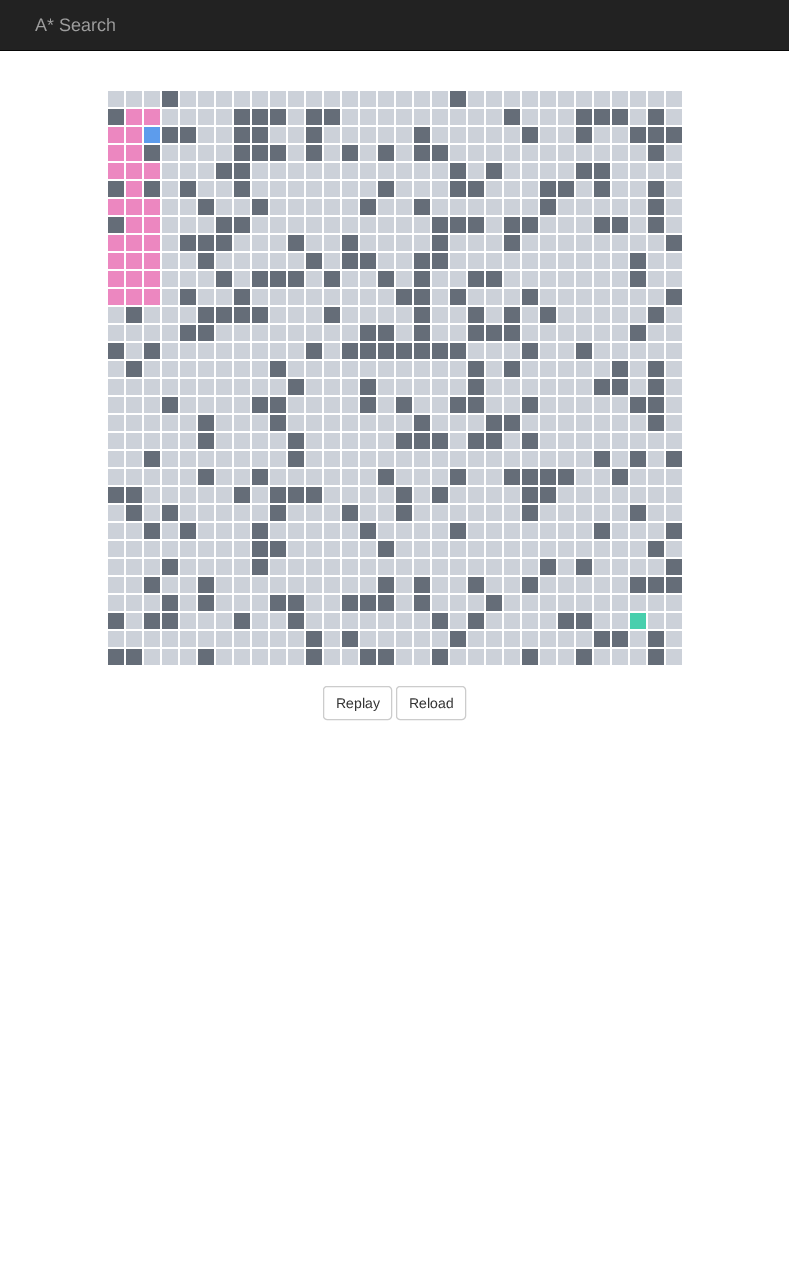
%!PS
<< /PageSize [789 1261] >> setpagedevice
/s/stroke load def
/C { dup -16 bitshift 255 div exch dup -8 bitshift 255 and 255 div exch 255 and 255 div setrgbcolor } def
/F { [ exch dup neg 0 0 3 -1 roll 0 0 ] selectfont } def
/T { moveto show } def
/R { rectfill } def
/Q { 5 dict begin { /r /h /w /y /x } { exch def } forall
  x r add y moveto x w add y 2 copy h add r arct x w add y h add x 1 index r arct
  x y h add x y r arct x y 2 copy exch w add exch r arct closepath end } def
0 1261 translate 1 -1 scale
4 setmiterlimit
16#FFFFFF C
0 0 789 1261 R
16#222222 C
0 0 789 50 R
16#080808 C
0 50 789 1 R
/LiberationSans-Regular 18 F
16#9D9D9D C
(A* Search) 35 31 T
16#CCD1D9 C
108 91 16 16 R
126 91 16 16 R
144 91 16 16 R
16#656D78 C
162 91 16 16 R
16#CCD1D9 C
180 91 16 16 R
198 91 16 16 R
216 91 16 16 R
234 91 16 16 R
252 91 16 16 R
270 91 16 16 R
288 91 16 16 R
306 91 16 16 R
324 91 16 16 R
342 91 16 16 R
360 91 16 16 R
378 91 16 16 R
396 91 16 16 R
414 91 16 16 R
432 91 16 16 R
16#656D78 C
450 91 16 16 R
16#CCD1D9 C
468 91 16 16 R
486 91 16 16 R
504 91 16 16 R
522 91 16 16 R
540 91 16 16 R
558 91 16 16 R
576 91 16 16 R
594 91 16 16 R
612 91 16 16 R
630 91 16 16 R
648 91 16 16 R
666 91 16 16 R
16#656D78 C
108 109 16 16 R
16#EC87C0 C
126 109 16 16 R
144 109 16 16 R
16#CCD1D9 C
162 109 16 16 R
180 109 16 16 R
198 109 16 16 R
216 109 16 16 R
16#656D78 C
234 109 16 16 R
252 109 16 16 R
270 109 16 16 R
16#CCD1D9 C
288 109 16 16 R
16#656D78 C
306 109 16 16 R
324 109 16 16 R
16#CCD1D9 C
342 109 16 16 R
360 109 16 16 R
378 109 16 16 R
396 109 16 16 R
414 109 16 16 R
432 109 16 16 R
450 109 16 16 R
468 109 16 16 R
486 109 16 16 R
16#656D78 C
504 109 16 16 R
16#CCD1D9 C
522 109 16 16 R
540 109 16 16 R
558 109 16 16 R
16#656D78 C
576 109 16 16 R
594 109 16 16 R
612 109 16 16 R
16#CCD1D9 C
630 109 16 16 R
16#656D78 C
648 109 16 16 R
16#CCD1D9 C
666 109 16 16 R
16#EC87C0 C
108 127 16 16 R
126 127 16 16 R
16#5D9CEC C
144 127 16 16 R
16#656D78 C
162 127 16 16 R
180 127 16 16 R
16#CCD1D9 C
198 127 16 16 R
216 127 16 16 R
16#656D78 C
234 127 16 16 R
252 127 16 16 R
16#CCD1D9 C
270 127 16 16 R
288 127 16 16 R
16#656D78 C
306 127 16 16 R
16#CCD1D9 C
324 127 16 16 R
342 127 16 16 R
360 127 16 16 R
378 127 16 16 R
396 127 16 16 R
16#656D78 C
414 127 16 16 R
16#CCD1D9 C
432 127 16 16 R
450 127 16 16 R
468 127 16 16 R
486 127 16 16 R
504 127 16 16 R
16#656D78 C
522 127 16 16 R
16#CCD1D9 C
540 127 16 16 R
558 127 16 16 R
16#656D78 C
576 127 16 16 R
16#CCD1D9 C
594 127 16 16 R
612 127 16 16 R
16#656D78 C
630 127 16 16 R
648 127 16 16 R
666 127 16 16 R
16#EC87C0 C
108 145 16 16 R
126 145 16 16 R
16#656D78 C
144 145 16 16 R
16#CCD1D9 C
162 145 16 16 R
180 145 16 16 R
198 145 16 16 R
216 145 16 16 R
16#656D78 C
234 145 16 16 R
252 145 16 16 R
270 145 16 16 R
16#CCD1D9 C
288 145 16 16 R
16#656D78 C
306 145 16 16 R
16#CCD1D9 C
324 145 16 16 R
16#656D78 C
342 145 16 16 R
16#CCD1D9 C
360 145 16 16 R
16#656D78 C
378 145 16 16 R
16#CCD1D9 C
396 145 16 16 R
16#656D78 C
414 145 16 16 R
432 145 16 16 R
16#CCD1D9 C
450 145 16 16 R
468 145 16 16 R
486 145 16 16 R
504 145 16 16 R
522 145 16 16 R
540 145 16 16 R
558 145 16 16 R
576 145 16 16 R
594 145 16 16 R
612 145 16 16 R
630 145 16 16 R
16#656D78 C
648 145 16 16 R
16#CCD1D9 C
666 145 16 16 R
16#EC87C0 C
108 163 16 16 R
126 163 16 16 R
144 163 16 16 R
16#CCD1D9 C
162 163 16 16 R
180 163 16 16 R
198 163 16 16 R
16#656D78 C
216 163 16 16 R
234 163 16 16 R
16#CCD1D9 C
252 163 16 16 R
270 163 16 16 R
288 163 16 16 R
306 163 16 16 R
324 163 16 16 R
342 163 16 16 R
360 163 16 16 R
378 163 16 16 R
396 163 16 16 R
414 163 16 16 R
432 163 16 16 R
16#656D78 C
450 163 16 16 R
16#CCD1D9 C
468 163 16 16 R
16#656D78 C
486 163 16 16 R
16#CCD1D9 C
504 163 16 16 R
522 163 16 16 R
540 163 16 16 R
558 163 16 16 R
16#656D78 C
576 163 16 16 R
594 163 16 16 R
16#CCD1D9 C
612 163 16 16 R
630 163 16 16 R
648 163 16 16 R
666 163 16 16 R
16#656D78 C
108 181 16 16 R
16#EC87C0 C
126 181 16 16 R
16#656D78 C
144 181 16 16 R
16#CCD1D9 C
162 181 16 16 R
16#656D78 C
180 181 16 16 R
16#CCD1D9 C
198 181 16 16 R
216 181 16 16 R
16#656D78 C
234 181 16 16 R
16#CCD1D9 C
252 181 16 16 R
270 181 16 16 R
288 181 16 16 R
306 181 16 16 R
324 181 16 16 R
342 181 16 16 R
360 181 16 16 R
16#656D78 C
378 181 16 16 R
16#CCD1D9 C
396 181 16 16 R
414 181 16 16 R
432 181 16 16 R
16#656D78 C
450 181 16 16 R
468 181 16 16 R
16#CCD1D9 C
486 181 16 16 R
504 181 16 16 R
522 181 16 16 R
16#656D78 C
540 181 16 16 R
558 181 16 16 R
16#CCD1D9 C
576 181 16 16 R
16#656D78 C
594 181 16 16 R
16#CCD1D9 C
612 181 16 16 R
630 181 16 16 R
16#656D78 C
648 181 16 16 R
16#CCD1D9 C
666 181 16 16 R
16#EC87C0 C
108 199 16 16 R
126 199 16 16 R
144 199 16 16 R
16#CCD1D9 C
162 199 16 16 R
180 199 16 16 R
16#656D78 C
198 199 16 16 R
16#CCD1D9 C
216 199 16 16 R
234 199 16 16 R
16#656D78 C
252 199 16 16 R
16#CCD1D9 C
270 199 16 16 R
288 199 16 16 R
306 199 16 16 R
324 199 16 16 R
342 199 16 16 R
16#656D78 C
360 199 16 16 R
16#CCD1D9 C
378 199 16 16 R
396 199 16 16 R
16#656D78 C
414 199 16 16 R
16#CCD1D9 C
432 199 16 16 R
450 199 16 16 R
468 199 16 16 R
486 199 16 16 R
504 199 16 16 R
522 199 16 16 R
16#656D78 C
540 199 16 16 R
16#CCD1D9 C
558 199 16 16 R
576 199 16 16 R
594 199 16 16 R
612 199 16 16 R
630 199 16 16 R
16#656D78 C
648 199 16 16 R
16#CCD1D9 C
666 199 16 16 R
16#656D78 C
108 217 16 16 R
16#EC87C0 C
126 217 16 16 R
144 217 16 16 R
16#CCD1D9 C
162 217 16 16 R
180 217 16 16 R
198 217 16 16 R
16#656D78 C
216 217 16 16 R
234 217 16 16 R
16#CCD1D9 C
252 217 16 16 R
270 217 16 16 R
288 217 16 16 R
306 217 16 16 R
324 217 16 16 R
342 217 16 16 R
360 217 16 16 R
378 217 16 16 R
396 217 16 16 R
414 217 16 16 R
16#656D78 C
432 217 16 16 R
450 217 16 16 R
468 217 16 16 R
16#CCD1D9 C
486 217 16 16 R
16#656D78 C
504 217 16 16 R
522 217 16 16 R
16#CCD1D9 C
540 217 16 16 R
558 217 16 16 R
576 217 16 16 R
16#656D78 C
594 217 16 16 R
612 217 16 16 R
16#CCD1D9 C
630 217 16 16 R
16#656D78 C
648 217 16 16 R
16#CCD1D9 C
666 217 16 16 R
16#EC87C0 C
108 235 16 16 R
126 235 16 16 R
144 235 16 16 R
16#CCD1D9 C
162 235 16 16 R
16#656D78 C
180 235 16 16 R
198 235 16 16 R
216 235 16 16 R
16#CCD1D9 C
234 235 16 16 R
252 235 16 16 R
270 235 16 16 R
16#656D78 C
288 235 16 16 R
16#CCD1D9 C
306 235 16 16 R
324 235 16 16 R
16#656D78 C
342 235 16 16 R
16#CCD1D9 C
360 235 16 16 R
378 235 16 16 R
396 235 16 16 R
414 235 16 16 R
16#656D78 C
432 235 16 16 R
16#CCD1D9 C
450 235 16 16 R
468 235 16 16 R
486 235 16 16 R
16#656D78 C
504 235 16 16 R
16#CCD1D9 C
522 235 16 16 R
540 235 16 16 R
558 235 16 16 R
576 235 16 16 R
594 235 16 16 R
612 235 16 16 R
630 235 16 16 R
648 235 16 16 R
16#656D78 C
666 235 16 16 R
16#EC87C0 C
108 253 16 16 R
126 253 16 16 R
144 253 16 16 R
16#CCD1D9 C
162 253 16 16 R
180 253 16 16 R
16#656D78 C
198 253 16 16 R
16#CCD1D9 C
216 253 16 16 R
234 253 16 16 R
252 253 16 16 R
270 253 16 16 R
288 253 16 16 R
16#656D78 C
306 253 16 16 R
16#CCD1D9 C
324 253 16 16 R
16#656D78 C
342 253 16 16 R
360 253 16 16 R
16#CCD1D9 C
378 253 16 16 R
396 253 16 16 R
16#656D78 C
414 253 16 16 R
432 253 16 16 R
16#CCD1D9 C
450 253 16 16 R
468 253 16 16 R
486 253 16 16 R
504 253 16 16 R
522 253 16 16 R
540 253 16 16 R
558 253 16 16 R
576 253 16 16 R
594 253 16 16 R
612 253 16 16 R
16#656D78 C
630 253 16 16 R
16#CCD1D9 C
648 253 16 16 R
666 253 16 16 R
16#EC87C0 C
108 271 16 16 R
126 271 16 16 R
144 271 16 16 R
16#CCD1D9 C
162 271 16 16 R
180 271 16 16 R
198 271 16 16 R
16#656D78 C
216 271 16 16 R
16#CCD1D9 C
234 271 16 16 R
16#656D78 C
252 271 16 16 R
270 271 16 16 R
288 271 16 16 R
16#CCD1D9 C
306 271 16 16 R
16#656D78 C
324 271 16 16 R
16#CCD1D9 C
342 271 16 16 R
360 271 16 16 R
16#656D78 C
378 271 16 16 R
16#CCD1D9 C
396 271 16 16 R
16#656D78 C
414 271 16 16 R
16#CCD1D9 C
432 271 16 16 R
450 271 16 16 R
16#656D78 C
468 271 16 16 R
486 271 16 16 R
16#CCD1D9 C
504 271 16 16 R
522 271 16 16 R
540 271 16 16 R
558 271 16 16 R
576 271 16 16 R
594 271 16 16 R
612 271 16 16 R
16#656D78 C
630 271 16 16 R
16#CCD1D9 C
648 271 16 16 R
666 271 16 16 R
16#EC87C0 C
108 289 16 16 R
126 289 16 16 R
144 289 16 16 R
16#CCD1D9 C
162 289 16 16 R
16#656D78 C
180 289 16 16 R
16#CCD1D9 C
198 289 16 16 R
216 289 16 16 R
16#656D78 C
234 289 16 16 R
16#CCD1D9 C
252 289 16 16 R
270 289 16 16 R
288 289 16 16 R
306 289 16 16 R
324 289 16 16 R
342 289 16 16 R
360 289 16 16 R
378 289 16 16 R
16#656D78 C
396 289 16 16 R
414 289 16 16 R
16#CCD1D9 C
432 289 16 16 R
16#656D78 C
450 289 16 16 R
16#CCD1D9 C
468 289 16 16 R
486 289 16 16 R
504 289 16 16 R
16#656D78 C
522 289 16 16 R
16#CCD1D9 C
540 289 16 16 R
558 289 16 16 R
576 289 16 16 R
594 289 16 16 R
612 289 16 16 R
630 289 16 16 R
648 289 16 16 R
16#656D78 C
666 289 16 16 R
16#CCD1D9 C
108 307 16 16 R
16#656D78 C
126 307 16 16 R
16#CCD1D9 C
144 307 16 16 R
162 307 16 16 R
180 307 16 16 R
16#656D78 C
198 307 16 16 R
216 307 16 16 R
234 307 16 16 R
252 307 16 16 R
16#CCD1D9 C
270 307 16 16 R
288 307 16 16 R
306 307 16 16 R
16#656D78 C
324 307 16 16 R
16#CCD1D9 C
342 307 16 16 R
360 307 16 16 R
378 307 16 16 R
396 307 16 16 R
16#656D78 C
414 307 16 16 R
16#CCD1D9 C
432 307 16 16 R
450 307 16 16 R
16#656D78 C
468 307 16 16 R
16#CCD1D9 C
486 307 16 16 R
16#656D78 C
504 307 16 16 R
16#CCD1D9 C
522 307 16 16 R
16#656D78 C
540 307 16 16 R
16#CCD1D9 C
558 307 16 16 R
576 307 16 16 R
594 307 16 16 R
612 307 16 16 R
630 307 16 16 R
16#656D78 C
648 307 16 16 R
16#CCD1D9 C
666 307 16 16 R
108 325 16 16 R
126 325 16 16 R
144 325 16 16 R
162 325 16 16 R
16#656D78 C
180 325 16 16 R
198 325 16 16 R
16#CCD1D9 C
216 325 16 16 R
234 325 16 16 R
252 325 16 16 R
270 325 16 16 R
288 325 16 16 R
306 325 16 16 R
324 325 16 16 R
342 325 16 16 R
16#656D78 C
360 325 16 16 R
378 325 16 16 R
16#CCD1D9 C
396 325 16 16 R
16#656D78 C
414 325 16 16 R
16#CCD1D9 C
432 325 16 16 R
450 325 16 16 R
16#656D78 C
468 325 16 16 R
486 325 16 16 R
504 325 16 16 R
16#CCD1D9 C
522 325 16 16 R
540 325 16 16 R
558 325 16 16 R
576 325 16 16 R
594 325 16 16 R
612 325 16 16 R
16#656D78 C
630 325 16 16 R
16#CCD1D9 C
648 325 16 16 R
666 325 16 16 R
16#656D78 C
108 343 16 16 R
16#CCD1D9 C
126 343 16 16 R
16#656D78 C
144 343 16 16 R
16#CCD1D9 C
162 343 16 16 R
180 343 16 16 R
198 343 16 16 R
216 343 16 16 R
234 343 16 16 R
252 343 16 16 R
270 343 16 16 R
288 343 16 16 R
16#656D78 C
306 343 16 16 R
16#CCD1D9 C
324 343 16 16 R
16#656D78 C
342 343 16 16 R
360 343 16 16 R
378 343 16 16 R
396 343 16 16 R
414 343 16 16 R
432 343 16 16 R
450 343 16 16 R
16#CCD1D9 C
468 343 16 16 R
486 343 16 16 R
504 343 16 16 R
16#656D78 C
522 343 16 16 R
16#CCD1D9 C
540 343 16 16 R
558 343 16 16 R
16#656D78 C
576 343 16 16 R
16#CCD1D9 C
594 343 16 16 R
612 343 16 16 R
630 343 16 16 R
648 343 16 16 R
666 343 16 16 R
108 361 16 16 R
16#656D78 C
126 361 16 16 R
16#CCD1D9 C
144 361 16 16 R
162 361 16 16 R
180 361 16 16 R
198 361 16 16 R
216 361 16 16 R
234 361 16 16 R
252 361 16 16 R
16#656D78 C
270 361 16 16 R
16#CCD1D9 C
288 361 16 16 R
306 361 16 16 R
324 361 16 16 R
342 361 16 16 R
360 361 16 16 R
378 361 16 16 R
396 361 16 16 R
414 361 16 16 R
432 361 16 16 R
450 361 16 16 R
16#656D78 C
468 361 16 16 R
16#CCD1D9 C
486 361 16 16 R
16#656D78 C
504 361 16 16 R
16#CCD1D9 C
522 361 16 16 R
540 361 16 16 R
558 361 16 16 R
576 361 16 16 R
594 361 16 16 R
16#656D78 C
612 361 16 16 R
16#CCD1D9 C
630 361 16 16 R
16#656D78 C
648 361 16 16 R
16#CCD1D9 C
666 361 16 16 R
108 379 16 16 R
126 379 16 16 R
144 379 16 16 R
162 379 16 16 R
180 379 16 16 R
198 379 16 16 R
216 379 16 16 R
234 379 16 16 R
252 379 16 16 R
270 379 16 16 R
16#656D78 C
288 379 16 16 R
16#CCD1D9 C
306 379 16 16 R
324 379 16 16 R
342 379 16 16 R
16#656D78 C
360 379 16 16 R
16#CCD1D9 C
378 379 16 16 R
396 379 16 16 R
414 379 16 16 R
432 379 16 16 R
450 379 16 16 R
16#656D78 C
468 379 16 16 R
16#CCD1D9 C
486 379 16 16 R
504 379 16 16 R
522 379 16 16 R
540 379 16 16 R
558 379 16 16 R
576 379 16 16 R
16#656D78 C
594 379 16 16 R
612 379 16 16 R
16#CCD1D9 C
630 379 16 16 R
16#656D78 C
648 379 16 16 R
16#CCD1D9 C
666 379 16 16 R
108 397 16 16 R
126 397 16 16 R
144 397 16 16 R
16#656D78 C
162 397 16 16 R
16#CCD1D9 C
180 397 16 16 R
198 397 16 16 R
216 397 16 16 R
234 397 16 16 R
16#656D78 C
252 397 16 16 R
270 397 16 16 R
16#CCD1D9 C
288 397 16 16 R
306 397 16 16 R
324 397 16 16 R
342 397 16 16 R
16#656D78 C
360 397 16 16 R
16#CCD1D9 C
378 397 16 16 R
16#656D78 C
396 397 16 16 R
16#CCD1D9 C
414 397 16 16 R
432 397 16 16 R
16#656D78 C
450 397 16 16 R
468 397 16 16 R
16#CCD1D9 C
486 397 16 16 R
504 397 16 16 R
16#656D78 C
522 397 16 16 R
16#CCD1D9 C
540 397 16 16 R
558 397 16 16 R
576 397 16 16 R
594 397 16 16 R
612 397 16 16 R
16#656D78 C
630 397 16 16 R
648 397 16 16 R
16#CCD1D9 C
666 397 16 16 R
108 415 16 16 R
126 415 16 16 R
144 415 16 16 R
162 415 16 16 R
180 415 16 16 R
16#656D78 C
198 415 16 16 R
16#CCD1D9 C
216 415 16 16 R
234 415 16 16 R
252 415 16 16 R
16#656D78 C
270 415 16 16 R
16#CCD1D9 C
288 415 16 16 R
306 415 16 16 R
324 415 16 16 R
342 415 16 16 R
360 415 16 16 R
378 415 16 16 R
396 415 16 16 R
16#656D78 C
414 415 16 16 R
16#CCD1D9 C
432 415 16 16 R
450 415 16 16 R
468 415 16 16 R
16#656D78 C
486 415 16 16 R
504 415 16 16 R
16#CCD1D9 C
522 415 16 16 R
540 415 16 16 R
558 415 16 16 R
576 415 16 16 R
594 415 16 16 R
612 415 16 16 R
630 415 16 16 R
16#656D78 C
648 415 16 16 R
16#CCD1D9 C
666 415 16 16 R
108 433 16 16 R
126 433 16 16 R
144 433 16 16 R
162 433 16 16 R
180 433 16 16 R
16#656D78 C
198 433 16 16 R
16#CCD1D9 C
216 433 16 16 R
234 433 16 16 R
252 433 16 16 R
270 433 16 16 R
16#656D78 C
288 433 16 16 R
16#CCD1D9 C
306 433 16 16 R
324 433 16 16 R
342 433 16 16 R
360 433 16 16 R
378 433 16 16 R
16#656D78 C
396 433 16 16 R
414 433 16 16 R
432 433 16 16 R
16#CCD1D9 C
450 433 16 16 R
16#656D78 C
468 433 16 16 R
486 433 16 16 R
16#CCD1D9 C
504 433 16 16 R
16#656D78 C
522 433 16 16 R
16#CCD1D9 C
540 433 16 16 R
558 433 16 16 R
576 433 16 16 R
594 433 16 16 R
612 433 16 16 R
630 433 16 16 R
648 433 16 16 R
666 433 16 16 R
108 451 16 16 R
126 451 16 16 R
16#656D78 C
144 451 16 16 R
16#CCD1D9 C
162 451 16 16 R
180 451 16 16 R
198 451 16 16 R
216 451 16 16 R
234 451 16 16 R
252 451 16 16 R
270 451 16 16 R
16#656D78 C
288 451 16 16 R
16#CCD1D9 C
306 451 16 16 R
324 451 16 16 R
342 451 16 16 R
360 451 16 16 R
378 451 16 16 R
396 451 16 16 R
414 451 16 16 R
432 451 16 16 R
450 451 16 16 R
468 451 16 16 R
486 451 16 16 R
504 451 16 16 R
522 451 16 16 R
540 451 16 16 R
558 451 16 16 R
576 451 16 16 R
16#656D78 C
594 451 16 16 R
16#CCD1D9 C
612 451 16 16 R
16#656D78 C
630 451 16 16 R
16#CCD1D9 C
648 451 16 16 R
16#656D78 C
666 451 16 16 R
16#CCD1D9 C
108 469 16 16 R
126 469 16 16 R
144 469 16 16 R
162 469 16 16 R
180 469 16 16 R
16#656D78 C
198 469 16 16 R
16#CCD1D9 C
216 469 16 16 R
234 469 16 16 R
16#656D78 C
252 469 16 16 R
16#CCD1D9 C
270 469 16 16 R
288 469 16 16 R
306 469 16 16 R
324 469 16 16 R
342 469 16 16 R
360 469 16 16 R
16#656D78 C
378 469 16 16 R
16#CCD1D9 C
396 469 16 16 R
414 469 16 16 R
432 469 16 16 R
16#656D78 C
450 469 16 16 R
16#CCD1D9 C
468 469 16 16 R
486 469 16 16 R
16#656D78 C
504 469 16 16 R
522 469 16 16 R
540 469 16 16 R
558 469 16 16 R
16#CCD1D9 C
576 469 16 16 R
594 469 16 16 R
16#656D78 C
612 469 16 16 R
16#CCD1D9 C
630 469 16 16 R
648 469 16 16 R
666 469 16 16 R
16#656D78 C
108 487 16 16 R
126 487 16 16 R
16#CCD1D9 C
144 487 16 16 R
162 487 16 16 R
180 487 16 16 R
198 487 16 16 R
216 487 16 16 R
16#656D78 C
234 487 16 16 R
16#CCD1D9 C
252 487 16 16 R
16#656D78 C
270 487 16 16 R
288 487 16 16 R
306 487 16 16 R
16#CCD1D9 C
324 487 16 16 R
342 487 16 16 R
360 487 16 16 R
378 487 16 16 R
16#656D78 C
396 487 16 16 R
16#CCD1D9 C
414 487 16 16 R
16#656D78 C
432 487 16 16 R
16#CCD1D9 C
450 487 16 16 R
468 487 16 16 R
486 487 16 16 R
504 487 16 16 R
16#656D78 C
522 487 16 16 R
540 487 16 16 R
16#CCD1D9 C
558 487 16 16 R
576 487 16 16 R
594 487 16 16 R
612 487 16 16 R
630 487 16 16 R
648 487 16 16 R
666 487 16 16 R
108 505 16 16 R
16#656D78 C
126 505 16 16 R
16#CCD1D9 C
144 505 16 16 R
16#656D78 C
162 505 16 16 R
16#CCD1D9 C
180 505 16 16 R
198 505 16 16 R
216 505 16 16 R
234 505 16 16 R
252 505 16 16 R
16#656D78 C
270 505 16 16 R
16#CCD1D9 C
288 505 16 16 R
306 505 16 16 R
324 505 16 16 R
16#656D78 C
342 505 16 16 R
16#CCD1D9 C
360 505 16 16 R
378 505 16 16 R
16#656D78 C
396 505 16 16 R
16#CCD1D9 C
414 505 16 16 R
432 505 16 16 R
450 505 16 16 R
468 505 16 16 R
486 505 16 16 R
504 505 16 16 R
16#656D78 C
522 505 16 16 R
16#CCD1D9 C
540 505 16 16 R
558 505 16 16 R
576 505 16 16 R
594 505 16 16 R
612 505 16 16 R
16#656D78 C
630 505 16 16 R
16#CCD1D9 C
648 505 16 16 R
666 505 16 16 R
108 523 16 16 R
126 523 16 16 R
16#656D78 C
144 523 16 16 R
16#CCD1D9 C
162 523 16 16 R
16#656D78 C
180 523 16 16 R
16#CCD1D9 C
198 523 16 16 R
216 523 16 16 R
234 523 16 16 R
16#656D78 C
252 523 16 16 R
16#CCD1D9 C
270 523 16 16 R
288 523 16 16 R
306 523 16 16 R
324 523 16 16 R
342 523 16 16 R
16#656D78 C
360 523 16 16 R
16#CCD1D9 C
378 523 16 16 R
396 523 16 16 R
414 523 16 16 R
432 523 16 16 R
16#656D78 C
450 523 16 16 R
16#CCD1D9 C
468 523 16 16 R
486 523 16 16 R
504 523 16 16 R
522 523 16 16 R
540 523 16 16 R
558 523 16 16 R
576 523 16 16 R
16#656D78 C
594 523 16 16 R
16#CCD1D9 C
612 523 16 16 R
630 523 16 16 R
648 523 16 16 R
16#656D78 C
666 523 16 16 R
16#CCD1D9 C
108 541 16 16 R
126 541 16 16 R
144 541 16 16 R
162 541 16 16 R
180 541 16 16 R
198 541 16 16 R
216 541 16 16 R
234 541 16 16 R
16#656D78 C
252 541 16 16 R
270 541 16 16 R
16#CCD1D9 C
288 541 16 16 R
306 541 16 16 R
324 541 16 16 R
342 541 16 16 R
360 541 16 16 R
16#656D78 C
378 541 16 16 R
16#CCD1D9 C
396 541 16 16 R
414 541 16 16 R
432 541 16 16 R
450 541 16 16 R
468 541 16 16 R
486 541 16 16 R
504 541 16 16 R
522 541 16 16 R
540 541 16 16 R
558 541 16 16 R
576 541 16 16 R
594 541 16 16 R
612 541 16 16 R
630 541 16 16 R
16#656D78 C
648 541 16 16 R
16#CCD1D9 C
666 541 16 16 R
108 559 16 16 R
126 559 16 16 R
144 559 16 16 R
16#656D78 C
162 559 16 16 R
16#CCD1D9 C
180 559 16 16 R
198 559 16 16 R
216 559 16 16 R
234 559 16 16 R
16#656D78 C
252 559 16 16 R
16#CCD1D9 C
270 559 16 16 R
288 559 16 16 R
306 559 16 16 R
324 559 16 16 R
342 559 16 16 R
360 559 16 16 R
378 559 16 16 R
396 559 16 16 R
414 559 16 16 R
432 559 16 16 R
450 559 16 16 R
468 559 16 16 R
486 559 16 16 R
504 559 16 16 R
522 559 16 16 R
16#656D78 C
540 559 16 16 R
16#CCD1D9 C
558 559 16 16 R
16#656D78 C
576 559 16 16 R
16#CCD1D9 C
594 559 16 16 R
612 559 16 16 R
630 559 16 16 R
648 559 16 16 R
16#656D78 C
666 559 16 16 R
16#CCD1D9 C
108 577 16 16 R
126 577 16 16 R
16#656D78 C
144 577 16 16 R
16#CCD1D9 C
162 577 16 16 R
180 577 16 16 R
16#656D78 C
198 577 16 16 R
16#CCD1D9 C
216 577 16 16 R
234 577 16 16 R
252 577 16 16 R
270 577 16 16 R
288 577 16 16 R
306 577 16 16 R
324 577 16 16 R
342 577 16 16 R
360 577 16 16 R
16#656D78 C
378 577 16 16 R
16#CCD1D9 C
396 577 16 16 R
16#656D78 C
414 577 16 16 R
16#CCD1D9 C
432 577 16 16 R
450 577 16 16 R
16#656D78 C
468 577 16 16 R
16#CCD1D9 C
486 577 16 16 R
504 577 16 16 R
16#656D78 C
522 577 16 16 R
16#CCD1D9 C
540 577 16 16 R
558 577 16 16 R
576 577 16 16 R
594 577 16 16 R
612 577 16 16 R
16#656D78 C
630 577 16 16 R
648 577 16 16 R
666 577 16 16 R
16#CCD1D9 C
108 595 16 16 R
126 595 16 16 R
144 595 16 16 R
16#656D78 C
162 595 16 16 R
16#CCD1D9 C
180 595 16 16 R
16#656D78 C
198 595 16 16 R
16#CCD1D9 C
216 595 16 16 R
234 595 16 16 R
252 595 16 16 R
16#656D78 C
270 595 16 16 R
288 595 16 16 R
16#CCD1D9 C
306 595 16 16 R
324 595 16 16 R
16#656D78 C
342 595 16 16 R
360 595 16 16 R
378 595 16 16 R
16#CCD1D9 C
396 595 16 16 R
16#656D78 C
414 595 16 16 R
16#CCD1D9 C
432 595 16 16 R
450 595 16 16 R
468 595 16 16 R
16#656D78 C
486 595 16 16 R
16#CCD1D9 C
504 595 16 16 R
522 595 16 16 R
540 595 16 16 R
558 595 16 16 R
576 595 16 16 R
594 595 16 16 R
612 595 16 16 R
630 595 16 16 R
648 595 16 16 R
666 595 16 16 R
16#656D78 C
108 613 16 16 R
16#CCD1D9 C
126 613 16 16 R
16#656D78 C
144 613 16 16 R
162 613 16 16 R
16#CCD1D9 C
180 613 16 16 R
198 613 16 16 R
216 613 16 16 R
16#656D78 C
234 613 16 16 R
16#CCD1D9 C
252 613 16 16 R
270 613 16 16 R
16#656D78 C
288 613 16 16 R
16#CCD1D9 C
306 613 16 16 R
324 613 16 16 R
342 613 16 16 R
360 613 16 16 R
378 613 16 16 R
396 613 16 16 R
414 613 16 16 R
16#656D78 C
432 613 16 16 R
16#CCD1D9 C
450 613 16 16 R
16#656D78 C
468 613 16 16 R
16#CCD1D9 C
486 613 16 16 R
504 613 16 16 R
522 613 16 16 R
540 613 16 16 R
16#656D78 C
558 613 16 16 R
576 613 16 16 R
16#CCD1D9 C
594 613 16 16 R
612 613 16 16 R
16#48CFAD C
630 613 16 16 R
16#CCD1D9 C
648 613 16 16 R
666 613 16 16 R
108 631 16 16 R
126 631 16 16 R
144 631 16 16 R
162 631 16 16 R
180 631 16 16 R
198 631 16 16 R
216 631 16 16 R
234 631 16 16 R
252 631 16 16 R
270 631 16 16 R
288 631 16 16 R
16#656D78 C
306 631 16 16 R
16#CCD1D9 C
324 631 16 16 R
16#656D78 C
342 631 16 16 R
16#CCD1D9 C
360 631 16 16 R
378 631 16 16 R
396 631 16 16 R
414 631 16 16 R
432 631 16 16 R
16#656D78 C
450 631 16 16 R
16#CCD1D9 C
468 631 16 16 R
486 631 16 16 R
504 631 16 16 R
522 631 16 16 R
540 631 16 16 R
558 631 16 16 R
576 631 16 16 R
16#656D78 C
594 631 16 16 R
612 631 16 16 R
16#CCD1D9 C
630 631 16 16 R
16#656D78 C
648 631 16 16 R
16#CCD1D9 C
666 631 16 16 R
16#656D78 C
108 649 16 16 R
126 649 16 16 R
16#CCD1D9 C
144 649 16 16 R
162 649 16 16 R
180 649 16 16 R
16#656D78 C
198 649 16 16 R
16#CCD1D9 C
216 649 16 16 R
234 649 16 16 R
252 649 16 16 R
270 649 16 16 R
288 649 16 16 R
16#656D78 C
306 649 16 16 R
16#CCD1D9 C
324 649 16 16 R
342 649 16 16 R
16#656D78 C
360 649 16 16 R
378 649 16 16 R
16#CCD1D9 C
396 649 16 16 R
414 649 16 16 R
16#656D78 C
432 649 16 16 R
16#CCD1D9 C
450 649 16 16 R
468 649 16 16 R
486 649 16 16 R
504 649 16 16 R
16#656D78 C
522 649 16 16 R
16#CCD1D9 C
540 649 16 16 R
558 649 16 16 R
16#656D78 C
576 649 16 16 R
16#CCD1D9 C
594 649 16 16 R
612 649 16 16 R
630 649 16 16 R
16#656D78 C
648 649 16 16 R
16#CCD1D9 C
666 649 16 16 R
16#CCCCCC C
323.5 686.5 68 33 3.5 Q s
/LiberationSans-Regular 14 F
16#333333 C
(Replay) 336 708 T
16#CCCCCC C
396.5 686.5 69 33 3.5 Q s
16#333333 C
(Reload) 409 708 T
showpage
